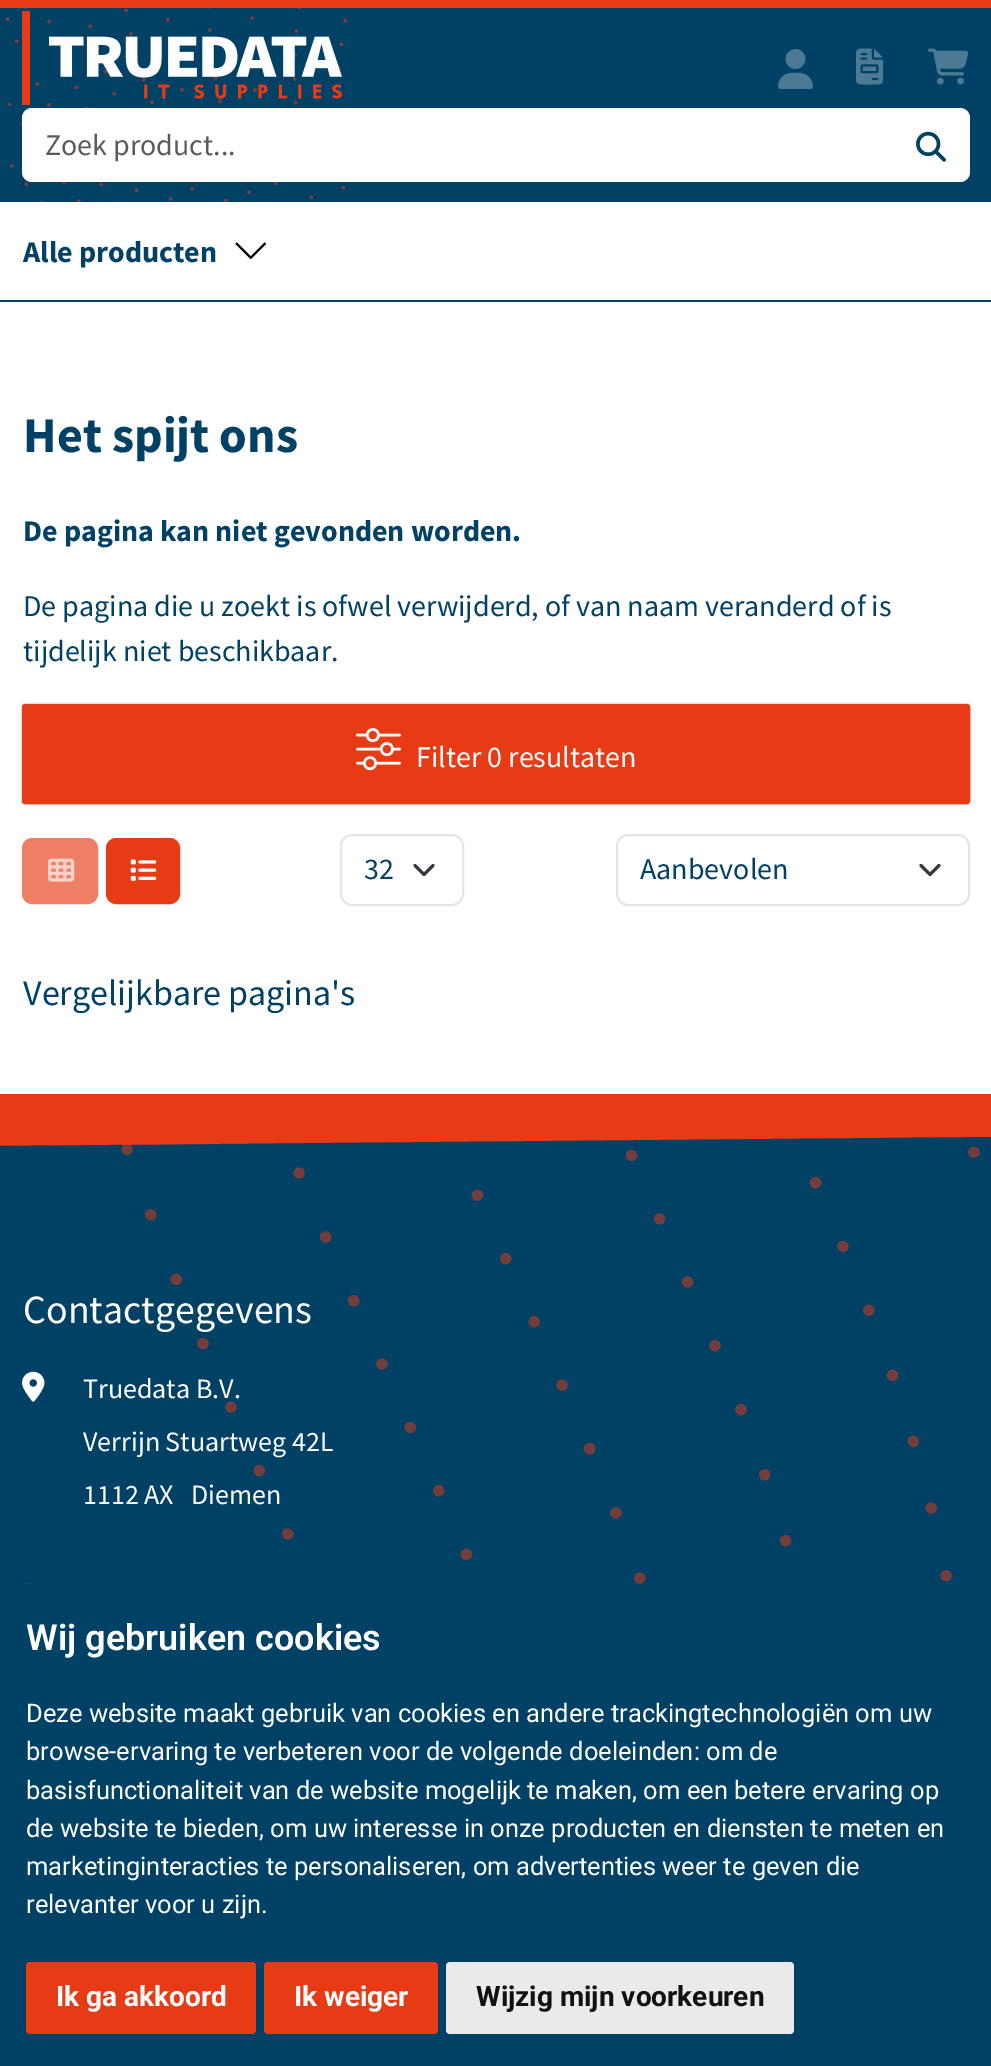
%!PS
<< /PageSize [991 2066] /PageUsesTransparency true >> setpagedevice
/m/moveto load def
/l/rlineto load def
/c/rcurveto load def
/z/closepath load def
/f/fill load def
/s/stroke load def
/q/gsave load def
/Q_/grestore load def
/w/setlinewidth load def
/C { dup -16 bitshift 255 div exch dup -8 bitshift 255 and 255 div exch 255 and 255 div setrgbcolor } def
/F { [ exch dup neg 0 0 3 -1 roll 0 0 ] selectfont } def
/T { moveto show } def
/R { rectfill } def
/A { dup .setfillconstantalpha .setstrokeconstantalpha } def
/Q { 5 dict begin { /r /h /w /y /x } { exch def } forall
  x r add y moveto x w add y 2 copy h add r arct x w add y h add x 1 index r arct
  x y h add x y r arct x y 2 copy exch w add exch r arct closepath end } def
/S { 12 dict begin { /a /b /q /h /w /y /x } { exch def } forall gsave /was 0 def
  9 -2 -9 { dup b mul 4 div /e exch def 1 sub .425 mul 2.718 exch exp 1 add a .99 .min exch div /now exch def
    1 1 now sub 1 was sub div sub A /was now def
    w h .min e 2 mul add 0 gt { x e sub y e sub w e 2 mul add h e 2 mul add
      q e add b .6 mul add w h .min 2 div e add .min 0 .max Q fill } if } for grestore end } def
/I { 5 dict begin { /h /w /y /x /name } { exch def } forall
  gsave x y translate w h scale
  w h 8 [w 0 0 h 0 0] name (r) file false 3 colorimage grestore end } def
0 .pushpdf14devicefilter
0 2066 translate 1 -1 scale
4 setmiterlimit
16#FFFFFF C
0 0 991 2066 R
16#004165 C
0 8 991 194 R
16#E63B14 C
0 0 991 8 R
(1.rgb) 5 8 343 194 I
(2.rgb) 22 11 320 94 I
(3.rgb) 778 49 35 40 I
(4.rgb) 856 48 27 37 I
(5.rgb) 928 48 41 37 I
16#FFFFFF C
32 108 m 858 0 l 0 74 l -858 0 l -5.5 0 -10 -4.5 -10 -10 c 0 -54 l 0 -5.5 4.5 -10 10 -10 c z f
/SourceSansPro-Regular 30 F
16#595C5F C
(Zoek product...) 45 155 T
16#FFFFFF C
890 108 m 70 0 l 5.5 0 10 4.5 10 10 c 0 54 l 0 5.5 -4.5 10 -10 10 c -70 0 l z f
(6.rgb) 916 131 30 31 I
16#004165 C
0 300 991 2 R
/SourceSansPro-Bold 30 F
(Alle producten) 23 262 T
(7.rgb) 235 242 31 17 I
/SourceSansPro-Bold 50 F
(Het spijt ons) 23 452 T
/SourceSansPro-Bold 30 F
(De pagina kan niet gevonden worden.) 23 541 T
/SourceSansPro-Regular 30 F
(De pagina die u zoekt is ofwel verwijderd, of van naam veranderd of is) 23 616 T
(tijdelijk niet beschikbaar.) 23 661 T
16#000000 C
22 704 948 100 3 1 .4 S
16#E63B14 C
23 705 946 98 2 Q q f Q_
2 w
s
(8.rgb) 356 728 45 43 I
16#FFFFFF C
(Filter 0 resultaten) 416 767 T
16#EF8066 C
23 839 74 64 9 Q q f Q_
s
(9.rgb) 48 858 27 24 I
16#E63B14 C
107 839 72 64 9 Q q f Q_
s
(10.rgb) 130 859 27 22 I
16#343A40 C
3 w
1 setlinecap
1 setlinejoin
415 865.5 m 9 9 l 9 -9 l s
16#E5E5E5 C
2 w
0 setlinecap
0 setlinejoin
341 835 122 70 11 Q s
16#004165 C
(32) 364 879 T
16#343A40 C
3 w
1 setlinecap
1 setlinejoin
921 865.5 m 9 9 l 9 -9 l s
16#E5E5E5 C
2 w
0 setlinecap
0 setlinejoin
617 835 352 70 11 Q s
16#004165 C
(Aanbevolen) 640 879 T
/SourceSansPro-Regular 36 F
(Vergelijkbare pagina's) 23 1005 T
16#E63B14 C
0 1094 991 52 R
16#004165 C
0 1177 991 889 R
0 1146 m 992 -9 l 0 40 l -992 9 l z f
(11.rgb) 121 1144 859 440 I
/SourceSansPro-Regular 40 F
16#FFFFFF C
(Contactgegevens) 23 1323 T
(12.rgb) 22 1371 23 31 I
/SourceSansPro-Regular 28 F
(Truedata B.V.) 83 1398 T
(Verrijn Stuartweg 42L) 83 1451 T
(1112 AX   Diemen) 83 1504 T
(13.rgb) 28 1583 3 1 I
/Roboto-SemiBold 36 F
(Wij gebruiken cookies) 26 1650 T
/Roboto-Regular 25.5 F
(Deze website maakt gebruik van cookies en andere trackingtechnologiën om uw) 26 1722 T
(browse-ervaring te verbeteren voor de volgende doeleinden: om de) 26 1760 T
(basisfunctionaliteit van de website mogelijk te maken, om een betere ervaring op) 26 1799 T
(de website te bieden, om uw interesse in onze producten en diensten te meten en) 26 1837 T
(marketinginteracties te personaliseren, om advertenties weer te geven die) 26 1875 T
(relevanter voor u zijn.) 26 1913 T
16#E63B14 C
26 1962 230 72 4 Q f
/Roboto-Bold 28 F
16#FFFFFF C
(Ik ga akkoord) 56 2006 T
16#E63B14 C
264 1962 174 72 4 Q f
16#FFFFFF C
(Ik weiger) 294 2006 T
16#EAEAEA C
446 1962 348 72 4 Q f
16#111111 C
(Wijzig mijn voorkeuren) 476 2006 T
.poppdf14devicefilter showpage
